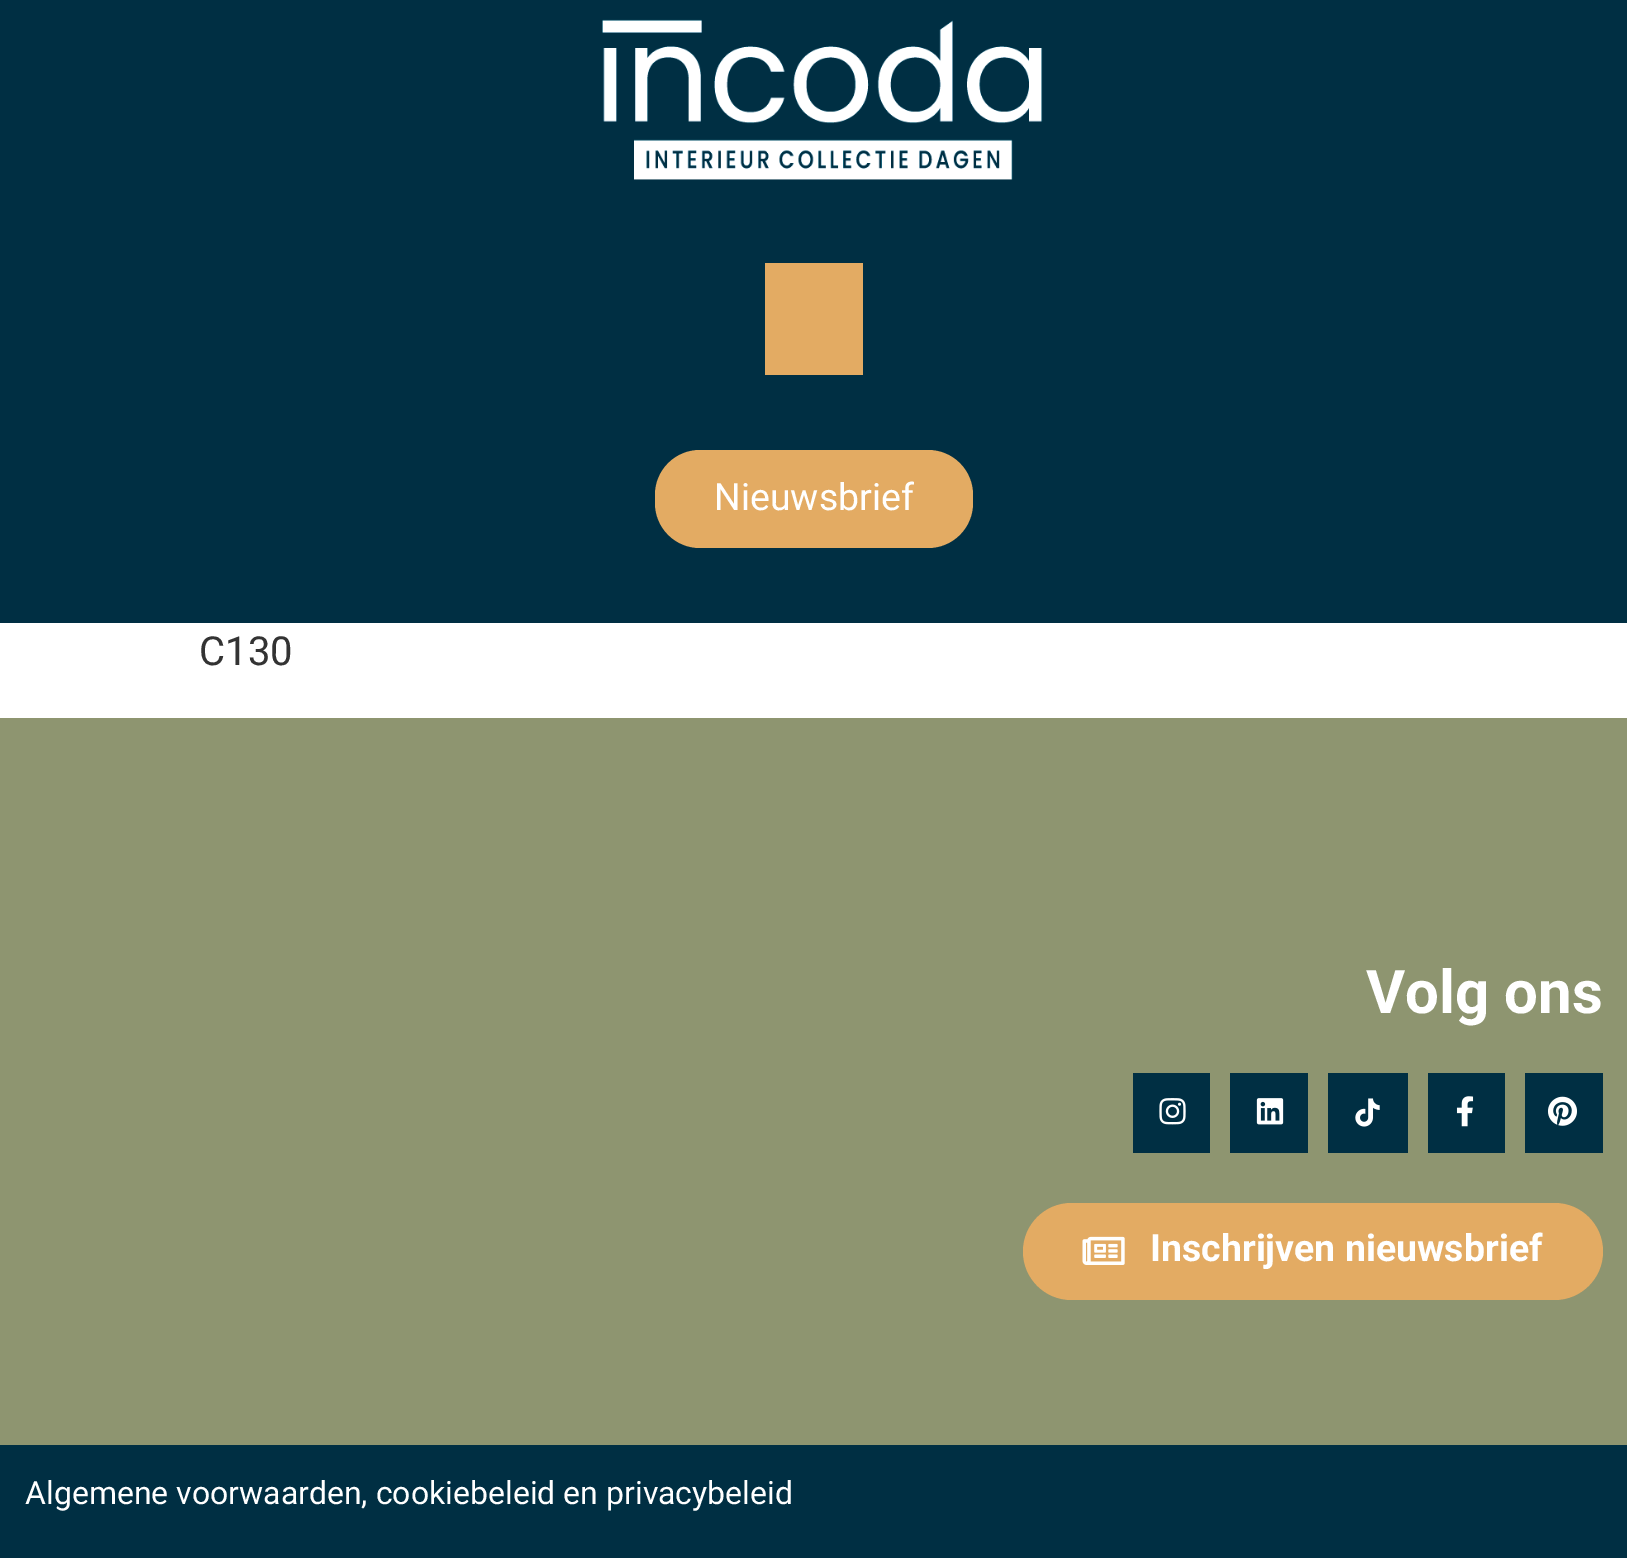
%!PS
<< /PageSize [1627 1558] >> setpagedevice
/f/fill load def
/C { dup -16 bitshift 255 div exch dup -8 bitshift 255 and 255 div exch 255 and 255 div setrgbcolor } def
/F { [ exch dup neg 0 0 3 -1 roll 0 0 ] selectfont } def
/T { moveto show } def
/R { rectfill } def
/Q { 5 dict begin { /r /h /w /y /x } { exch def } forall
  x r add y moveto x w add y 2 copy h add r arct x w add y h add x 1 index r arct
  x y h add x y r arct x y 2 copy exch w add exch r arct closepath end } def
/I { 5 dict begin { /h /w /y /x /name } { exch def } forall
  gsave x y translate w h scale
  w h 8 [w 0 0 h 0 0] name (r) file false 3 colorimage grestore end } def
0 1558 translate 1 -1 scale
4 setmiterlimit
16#FFFFFF C
0 0 1627 1558 R
16#002F43 C
0 0 1627 623 R
(1.rgb) 602 19 441 161 I
16#E3AB63 C
765 263 98 112 R
655 450 318 98 45 Q f
/Roboto-Regular 37.5 F
16#FFFFFF C
(Nieuwsbrief) 714 510 T
/Roboto-Regular 40 F
16#333333 C
(C130) 199 665 T
16#8E9570 C
0 718 1627 727 R
/Roboto-Bold 60 F
16#FFFFFF C
(Volg ons) 1366 1013 T
16#002F43 C
1133 1073 77 80 R
(2.rgb) 1159 1098 27 27 I
1230 1073 78 80 R
(3.rgb) 1256 1098 28 27 I
1328 1073 80 80 R
(4.rgb) 1355 1098 25 29 I
1428 1073 77 80 R
(5.rgb) 1456 1096 18 31 I
1525 1073 78 80 R
(6.rgb) 1548 1096 29 30 I
16#E3AB63 C
1023 1203 580 97 48.5 Q f
(7.rgb) 1082 1236 43 29 I
/Roboto-Bold 37.5 F
16#FFFFFF C
(Inschrijven nieuwsbrief) 1150 1261 T
16#002F43 C
0 1445 1627 113 R
/Roboto-Regular 32 F
16#FFFFFF C
(Algemene voorwaarden, cookiebeleid en privacybeleid) 25 1504 T
showpage
